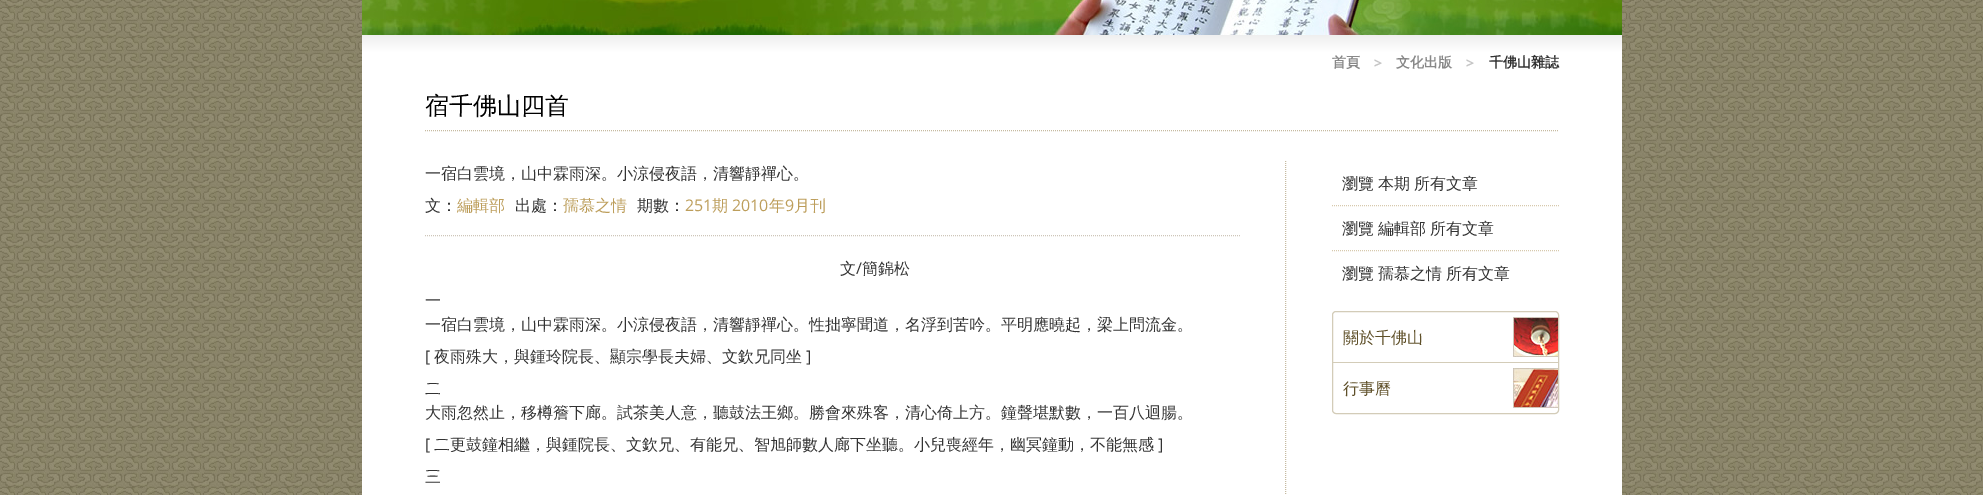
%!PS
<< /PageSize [1983 495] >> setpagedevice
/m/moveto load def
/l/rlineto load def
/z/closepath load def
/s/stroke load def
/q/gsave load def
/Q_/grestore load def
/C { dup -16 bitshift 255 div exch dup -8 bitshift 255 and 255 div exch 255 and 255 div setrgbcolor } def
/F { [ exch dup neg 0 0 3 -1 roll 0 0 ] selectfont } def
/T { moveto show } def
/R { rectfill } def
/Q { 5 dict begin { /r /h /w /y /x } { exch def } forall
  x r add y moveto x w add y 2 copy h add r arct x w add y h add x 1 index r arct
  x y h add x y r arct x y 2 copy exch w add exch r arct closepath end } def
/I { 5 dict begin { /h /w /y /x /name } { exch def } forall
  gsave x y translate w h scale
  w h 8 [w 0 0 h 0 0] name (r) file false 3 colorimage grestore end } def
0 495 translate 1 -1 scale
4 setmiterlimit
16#FFFFFF C
0 0 1983 495 R
(1.rgb) 0 0 1983 495 I
(2.rgb) 362 0 1260 35 I
q 362 35 m 1260 0 l 0 460 l -1260 0 l z clip newpath
<< /ShadingType 2 /ColorSpace /DeviceRGB /Coords [992 35 992 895] /Extend [true true] /Function << /FunctionType 3 /Domain [0 1] /Functions [<< /FunctionType 2 /Domain [0 1] /C0 [.937 .937 .937] /C1 [1 1 1] /N 1 >> << /FunctionType 2 /Domain [0 1] /C0 [1 1 1] /C1 [1 1 1] /N 1 >>] /Bounds [.02] /Encode [0 1 0 1] >> >> shfill Q_
/WenQuanYiZenHei-Bold 14 F
16#888888 C
(首頁) 1332 67 T
/OpenSans-Bold 14 F
16#C4C4C4 C
(>) 1374 68 T
/WenQuanYiZenHei-Bold 14 F
16#888888 C
(文化出版) 1396 67 T
/OpenSans-Bold 14 F
16#C4C4C4 C
(>) 1466 68 T
/WenQuanYiZenHei-Bold 14 F
16#333333 C
(千佛山雜誌) 1489 67 T
16#C6BAA0 C
[1 1] 0 setdash
425 130.5 m 1134 0 l s
/WenQuanYiZenHei-Medium 24 F
16#000000 C
(宿千佛山四首) 425 114 T
16#C6BAA0 C
1285.5 161 m 0 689 l s
16#CEC6B9 C
425 235.5 m 815 0 l s
/WenQuanYiZenHei-Medium 16 F
16#333333 C
(一宿白雲境，山中霖雨深。小涼侵夜語，清響靜禪心。) 425 179 T
(文：) 425 211 T
16#BD9E5B C
(編輯部) 457 211 T
16#333333 C
(出處：) 515 211 T
16#BD9E5B C
(孺慕之情) 563 211 T
16#333333 C
(期數：) 637 211 T
/OpenSans-Regular 16 F
16#BD9E5B C
(251) 685 211 T
/WenQuanYiZenHei-Medium 16 F
(期) 712 211 T
/OpenSans-Regular 16 F
(2010) 732 211 T
/WenQuanYiZenHei-Medium 16 F
(年) 769 211 T
/OpenSans-Regular 16 F
(9) 785 211 T
/WenQuanYiZenHei-Medium 16 F
(月刊) 794 211 T
16#333333 C
(文) 840 274 T
/OpenSans-Regular 16 F
(/) 856 274 T
/WenQuanYiZenHei-Medium 16 F
(簡錦松) 862 274 T
(一) 425 306 T
(一宿白雲境，山中霖雨深。小涼侵夜語，清響靜禪心。性拙寧聞道，名浮到苦吟。平明應曉起，梁上問流金。) 425 330 T
/OpenSans-Regular 16 F
([) 425 362 T
/WenQuanYiZenHei-Medium 16 F
(夜雨殊大，與鍾玲院長、顯宗學長夫婦、文欽兄同坐) 434 362 T
/OpenSans-Regular 16 F
(]) 806 362 T
/WenQuanYiZenHei-Medium 16 F
(二) 425 394 T
(大雨忽然止，移樽簷下廊。試茶美人意，聽鼓法王鄉。勝會來殊客，清心倚上方。鐘聲堪默數，一百八迴腸。) 425 418 T
/OpenSans-Regular 16 F
([) 425 450 T
/WenQuanYiZenHei-Medium 16 F
(二更鼓鐘相繼，與鍾院長、文欽兄、有能兄、智旭師數人廊下坐聽。小兒喪經年，幽冥鐘動，不能無感) 434 450 T
/OpenSans-Regular 16 F
(]) 1158 450 T
/WenQuanYiZenHei-Medium 16 F
(三) 425 482 T
16#D7C9AD C
1332 205.5 m 227 0 l s
16#333333 C
1342 189 m -1 0 32 (瀏覽 本期 所有文章) widthshow
16#D7C9AD C
1332 250.5 m 227 0 l s
16#333333 C
1342 234 m -1 0 32 (瀏覽 編輯部 所有文章) widthshow
1342 279 m -1 0 32 (瀏覽 孺慕之情 所有文章) widthshow
16#D3CCB8 C
[] 0 setdash
1332.5 311.5 226 102 3.5 Q s
1333 362 225 1 R
16#5F5029 C
(關於千佛山) 1343 343 T
(3.rgb) 1513 317 45 40 I
(行事曆) 1343 394 T
(4.rgb) 1513 368 45 40 I
showpage
